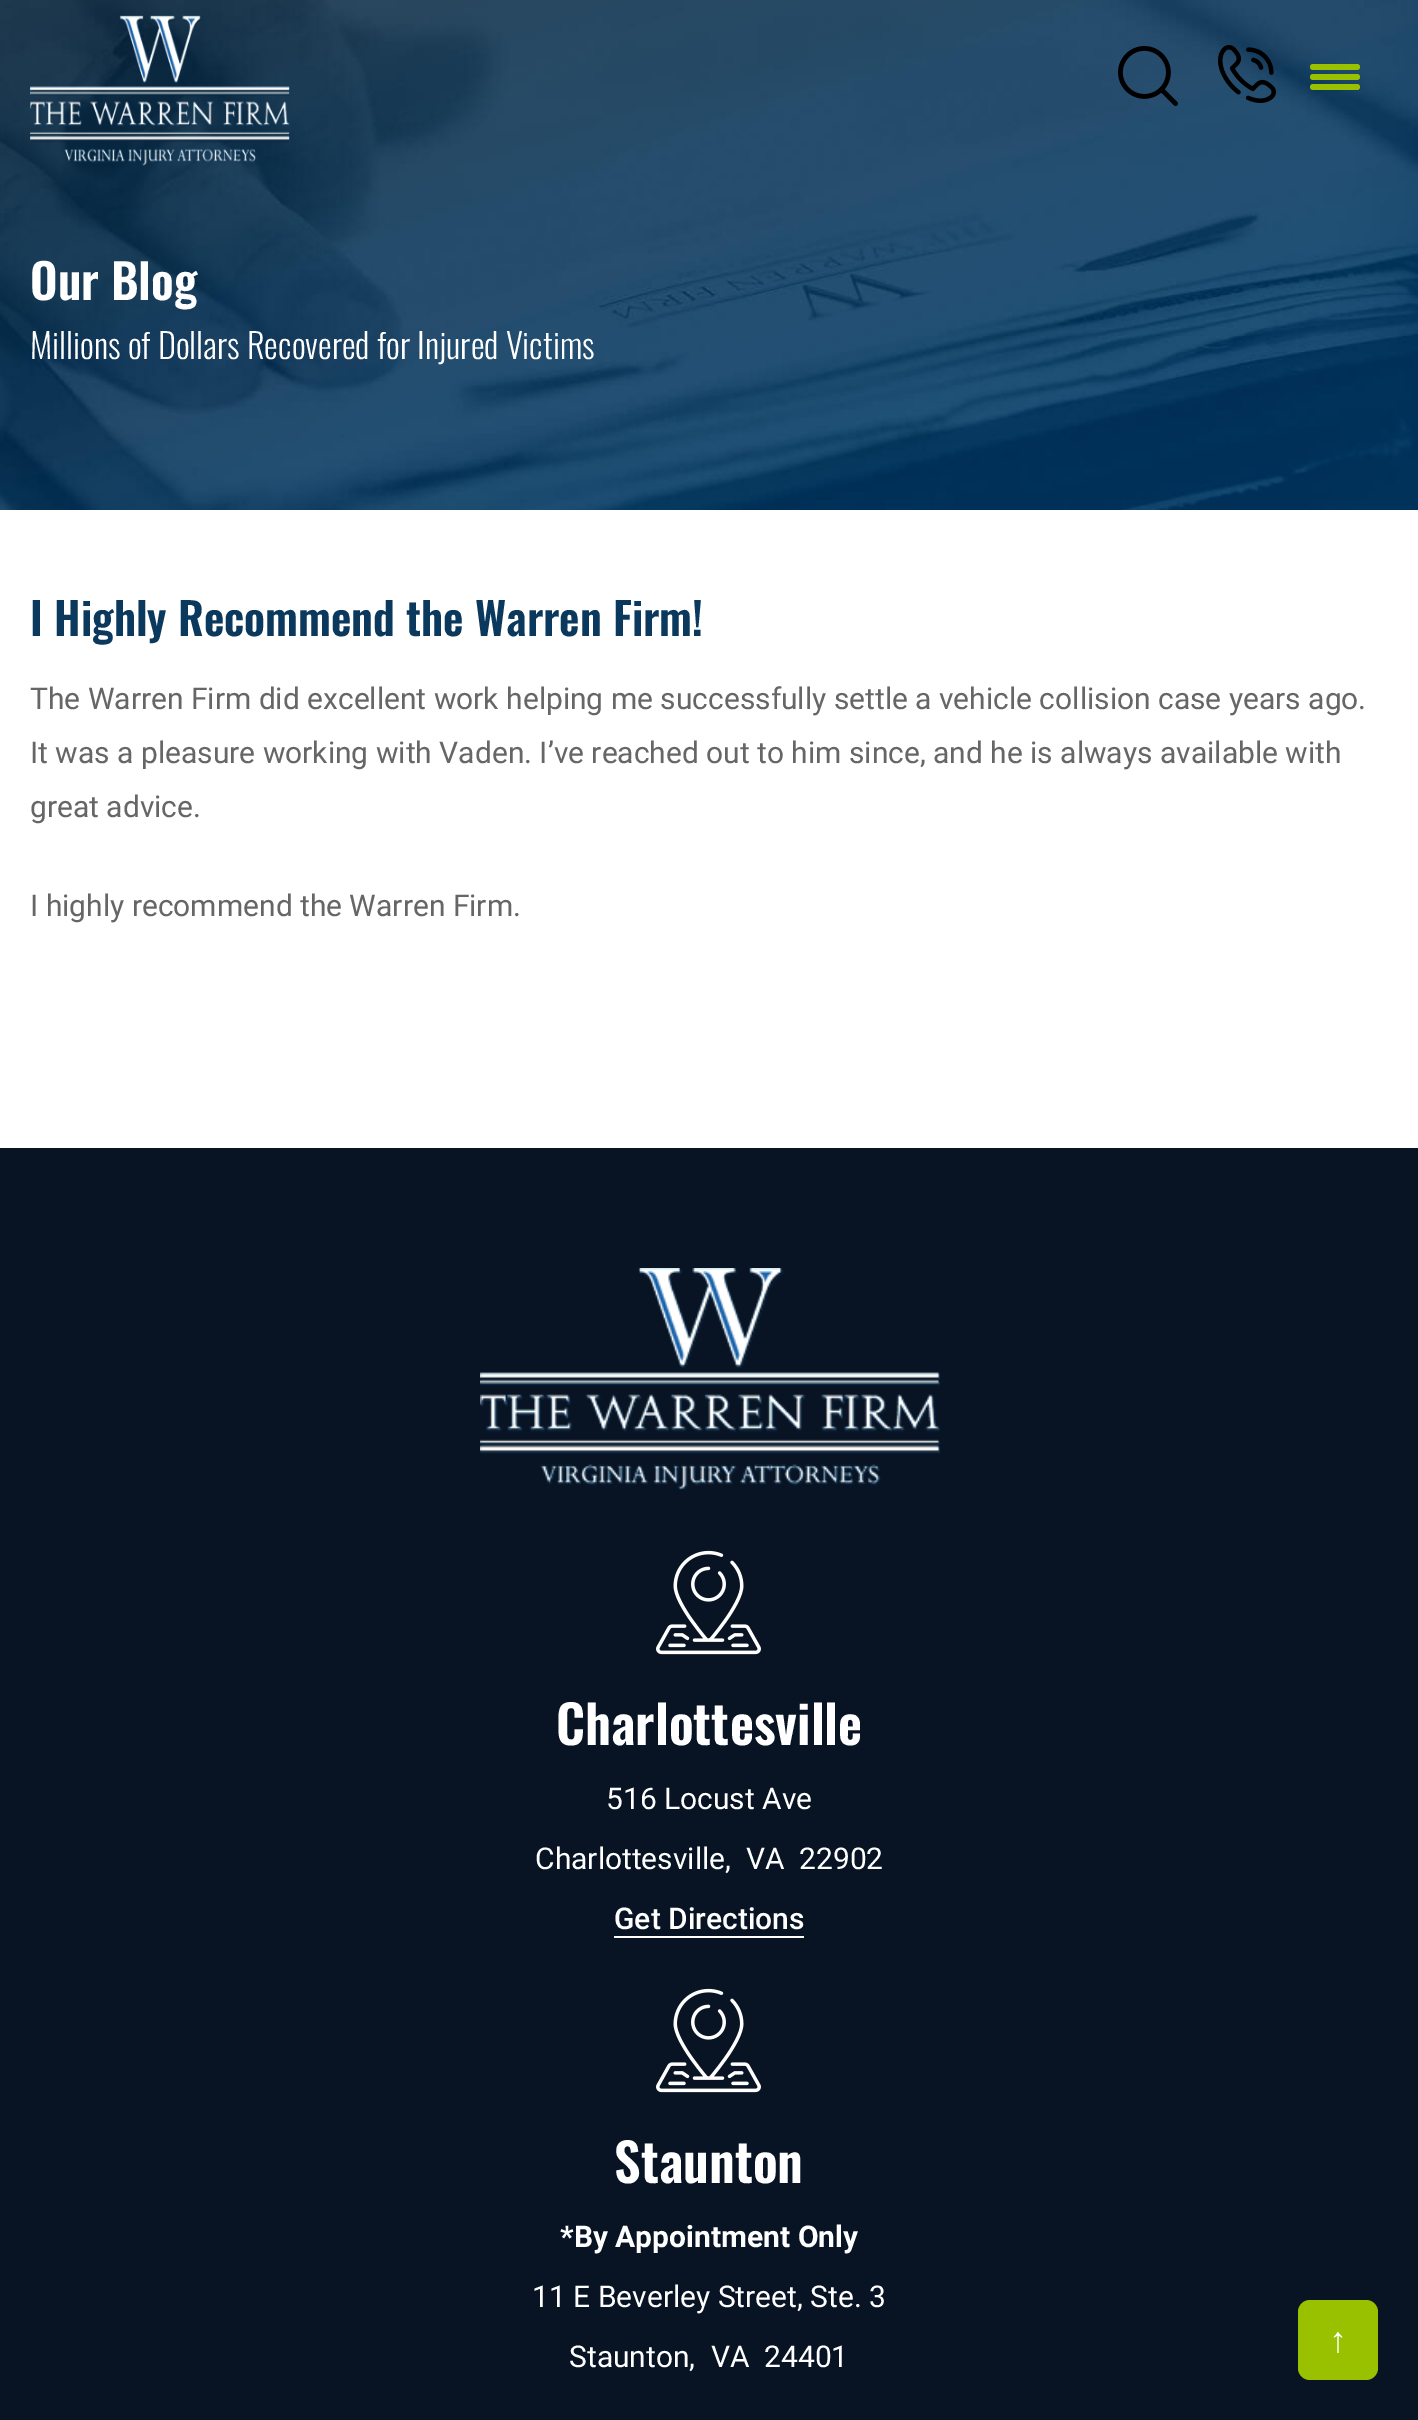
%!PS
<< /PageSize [1418 2420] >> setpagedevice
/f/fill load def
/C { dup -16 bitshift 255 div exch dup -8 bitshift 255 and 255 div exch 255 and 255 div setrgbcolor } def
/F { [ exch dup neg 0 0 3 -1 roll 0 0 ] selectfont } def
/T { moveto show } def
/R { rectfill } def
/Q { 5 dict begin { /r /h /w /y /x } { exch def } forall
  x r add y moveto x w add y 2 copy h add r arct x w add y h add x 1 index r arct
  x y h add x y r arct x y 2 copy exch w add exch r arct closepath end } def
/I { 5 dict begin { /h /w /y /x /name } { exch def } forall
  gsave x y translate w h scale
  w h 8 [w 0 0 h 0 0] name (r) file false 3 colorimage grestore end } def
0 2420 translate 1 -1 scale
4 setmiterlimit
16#FFFFFF C
0 0 1418 2420 R
(4.rgb) 0 0 1418 510 I
(1.rgb) 30 15 260 151 I
(2.rgb) 1118 46 60 60 I
(3.rgb) 1218 45 58 58 I
16#99C100 C
1310 74 50 6 3 Q f
1310 64 50 6 3 Q f
1310 84 50 6 3 Q f
/Oswald-SemiBold 48 F
16#FFFFFF C
(Our Blog) 30 300 T
/Oswald-Light 34.5 F
(Millions of Dollars Recovered for Injured Victims) 30 359 T
/Oswald-SemiBold 44.4 F
16#0B395D C
(I Highly Recommend the Warren Firm!) 30 636 T
/Roboto-Regular 30 F
16#666666 C
(The Warren Firm did excellent work helping me successfully settle a vehicle collision case years ago.) 30 709 T
(It was a pleasure working with Vaden. I’ve reached out to him since, and he is always available with) 30 763 T
(great advice.) 30 817 T
(I highly recommend the Warren Firm.) 30 916 T
16#081424 C
0 1148 1418 1272 R
(5.rgb) 480 1268 460 222 I
(6.rgb) 656 1550 105 105 I
/Oswald-SemiBold 52.5 F
16#FFFFFF C
(Charlottesville) 556 1745 T
/Roboto-Regular 30 F
(516 Locust Ave) 606 1809 T
(Charlottesville,) 535 1869 T
(VA) 746 1869 T
(22902) 799 1869 T
/Roboto-Medium 30 F
(Get Directions) 614 1929 T
614 1936 190 2 R
(6.rgb) 656 1988 105 105 I
/Oswald-SemiBold 52.5 F
(Staunton) 614 2183 T
/Roboto-Bold 30 F
(*By Appointment Only) 560 2247 T
/Roboto-Regular 30 F
(11 E Beverley Street, Ste. 3) 532 2307 T
(Staunton,) 569 2367 T
(VA) 711 2367 T
(24401) 764 2367 T
16#99C100 C
1298 2300 80 80 12 Q f
/LiberationSerif-Regular 36 F
16#FFFFFF C
(↑) 1329 2352 T
showpage
